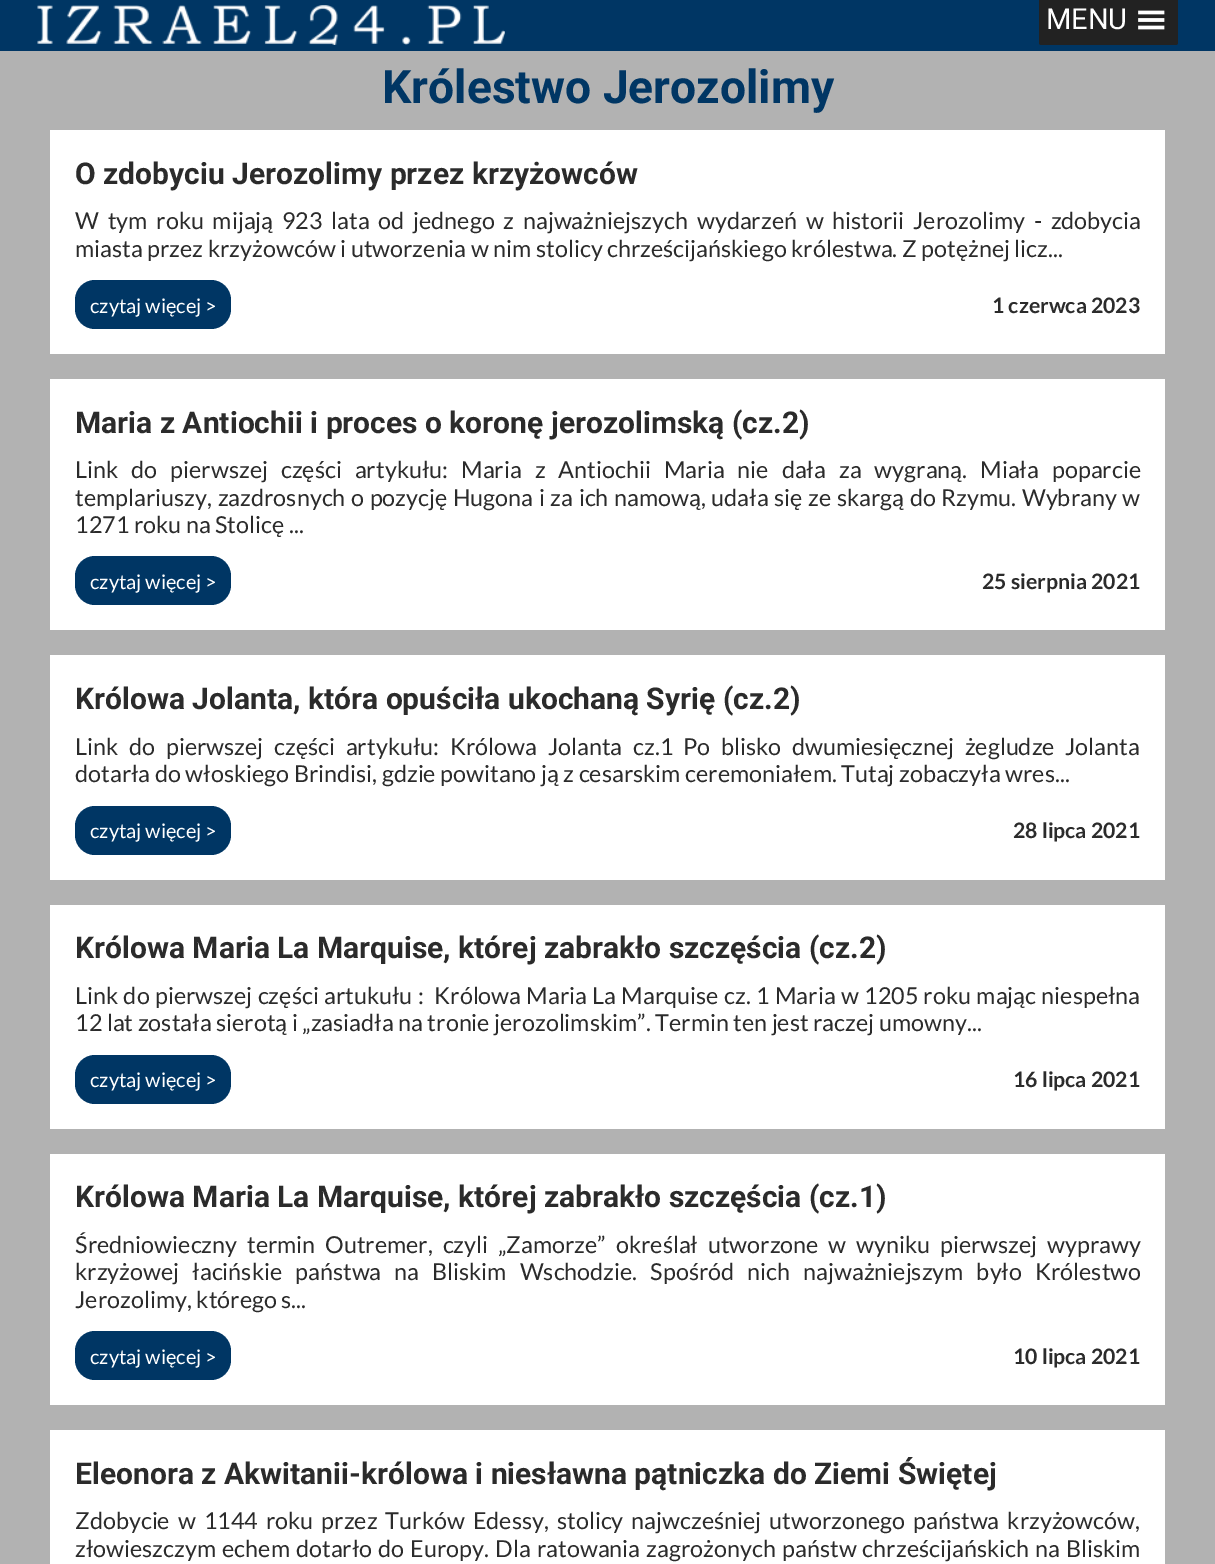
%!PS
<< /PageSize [1215 1564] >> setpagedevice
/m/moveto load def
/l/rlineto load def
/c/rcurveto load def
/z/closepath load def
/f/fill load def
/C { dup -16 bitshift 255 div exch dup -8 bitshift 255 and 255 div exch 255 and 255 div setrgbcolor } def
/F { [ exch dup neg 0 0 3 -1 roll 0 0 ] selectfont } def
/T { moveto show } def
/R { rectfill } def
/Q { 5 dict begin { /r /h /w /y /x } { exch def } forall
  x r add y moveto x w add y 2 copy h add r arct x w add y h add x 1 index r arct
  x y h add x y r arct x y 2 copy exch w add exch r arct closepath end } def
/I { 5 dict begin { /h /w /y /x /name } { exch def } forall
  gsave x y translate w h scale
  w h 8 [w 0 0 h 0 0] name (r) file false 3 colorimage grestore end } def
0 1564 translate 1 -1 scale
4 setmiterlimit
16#B2B2B2 C
0 0 1215 1564 R
16#003664 C
0 0 1215 51 R
(1.rgb) 37 5 468 40 I
16#222222 C
1039 0 m 139 0 l 0 42.5 l 0 1.5 -1 2.5 -2.5 2.5 c -134 0 l -1.5 0 -2.5 -1 -2.5 -2.5 c z f
/Roboto-Regular 29 F
16#FFFFFF C
(MENU) 1046 29 T
(2.rgb) 1138 10 27 20 I
/Roboto-Bold 46.25 F
16#003664 C
(Królestwo Jerozolimy) 382 103 T
16#FFFFFF C
50 130 1115 224 R
/Roboto-Bold 30 F
16#2B2B2B C
(O zdobyciu Jerozolimy przez krzyżowców) 75 184 T
/Lato-Regular 23.35 F
75 229 m 4.25 0 32 (W tym roku mijają 923 lata od jednego z najważniejszych wydarzeń w historii Jerozolimy - zdobycia) widthshow
(miasta przez krzyżowców i utworzenia w nim stolicy chrześcijańskiego królestwa. Z potężnej licz...) 75 257 T
16#003664 C
75 280 156 49 20 Q f
/Lato-Regular 20 F
16#FFFFFF C
(czytaj więcej >) 90 313 T
/Lato-Bold 21.25 F
16#2B2B2B C
(1 czerwca 2023) 992 313 T
16#FFFFFF C
50 379 1115 251 R
/Roboto-Bold 30 F
16#2B2B2B C
(Maria z Antiochii i proces o koronę jerozolimską \(cz.2\)) 75 433 T
/Lato-Regular 23.35 F
75 478 m 8.5 0 32 (Link do pierwszej części artykułu: Maria z Antiochii Maria nie dała za wygraną. Miała poparcie) widthshow
75 506 m 1.1 0 32 (templariuszy, zazdrosnych o pozycję Hugona i za ich namową, udała się ze skargą do Rzymu. Wybrany w) widthshow
(1271 roku na Stolicę ...) 75 533 T
16#003664 C
75 556 156 49 20 Q f
/Lato-Regular 20 F
16#FFFFFF C
(czytaj więcej >) 90 589 T
/Lato-Bold 21.25 F
16#2B2B2B C
(25 sierpnia 2021) 982 589 T
16#FFFFFF C
50 655 1115 225 R
/Roboto-Bold 30 F
16#2B2B2B C
(Królowa Jolanta, która opuściła ukochaną Syrię \(cz.2\)) 75 709 T
/Lato-Regular 23.35 F
75 755 m 6.25 0 32 (Link do pierwszej części artykułu: Królowa Jolanta cz.1) widthshow
683 755 m 6 0 32 (Po blisko dwumiesięcznej żegludze Jolanta) widthshow
(dotarła do włoskiego Brindisi, gdzie powitano ją z cesarskim ceremoniałem. Tutaj zobaczyła wres...) 75 782 T
16#003664 C
75 806 156 49 20 Q f
/Lato-Regular 20 F
16#FFFFFF C
(czytaj więcej >) 90 838 T
/Lato-Bold 21.25 F
16#2B2B2B C
(28 lipca 2021) 1013 838 T
16#FFFFFF C
50 905 1115 224 R
/Roboto-Bold 30 F
16#2B2B2B C
(Królowa Maria La Marquise, której zabrakło szczęścia \(cz.2\)) 75 958 T
/Lato-Regular 23.35 F
75 1004 m .8 0 32 (Link do pierwszej części artukułu :  Królowa Maria La Marquise cz. 1) widthshow
775 1004 m .8 0 32 (Maria w 1205 roku mając niespełna) widthshow
(12 lat została sierotą i „zasiadła na tronie jerozolimskim”. Termin ten jest raczej umowny...) 75 1031 T
16#003664 C
75 1055 156 49 20 Q f
/Lato-Regular 20 F
16#FFFFFF C
(czytaj więcej >) 90 1087 T
/Lato-Bold 21.25 F
16#2B2B2B C
(16 lipca 2021) 1013 1087 T
16#FFFFFF C
50 1154 1115 251 R
/Roboto-Bold 30 F
16#2B2B2B C
(Królowa Maria La Marquise, której zabrakło szczęścia \(cz.1\)) 75 1207 T
/Lato-Regular 23.35 F
75 1253 m 5.25 0 32 (Średniowieczny termin Outremer, czyli „Zamorze” określał utworzone w wyniku pierwszej wyprawy) widthshow
75 1280 m 8.5 0 32 (krzyżowej łacińskie państwa na Bliskim Wschodzie. Spośród nich najważniejszym było Królestwo) widthshow
(Jerozolimy, którego s...) 75 1308 T
16#003664 C
75 1331 156 49 20 Q f
/Lato-Regular 20 F
16#FFFFFF C
(czytaj więcej >) 90 1364 T
/Lato-Bold 21.25 F
16#2B2B2B C
(10 lipca 2021) 1013 1364 T
16#FFFFFF C
50 1430 1115 134 R
/Roboto-Bold 30 F
16#2B2B2B C
(Eleonora z Akwitanii-królowa i niesławna pątniczka do Ziemi Świętej) 75 1484 T
/Lato-Regular 23.35 F
75 1529 m 3.5 0 32 (Zdobycie w 1144 roku przez Turków Edessy, stolicy najwcześniej utworzonego państwa krzyżowców,) widthshow
75 1557 m 1.6 0 32 (złowieszczym echem dotarło do Europy. Dla ratowania zagrożonych państw chrześcijańskich na Bliskim) widthshow
showpage
